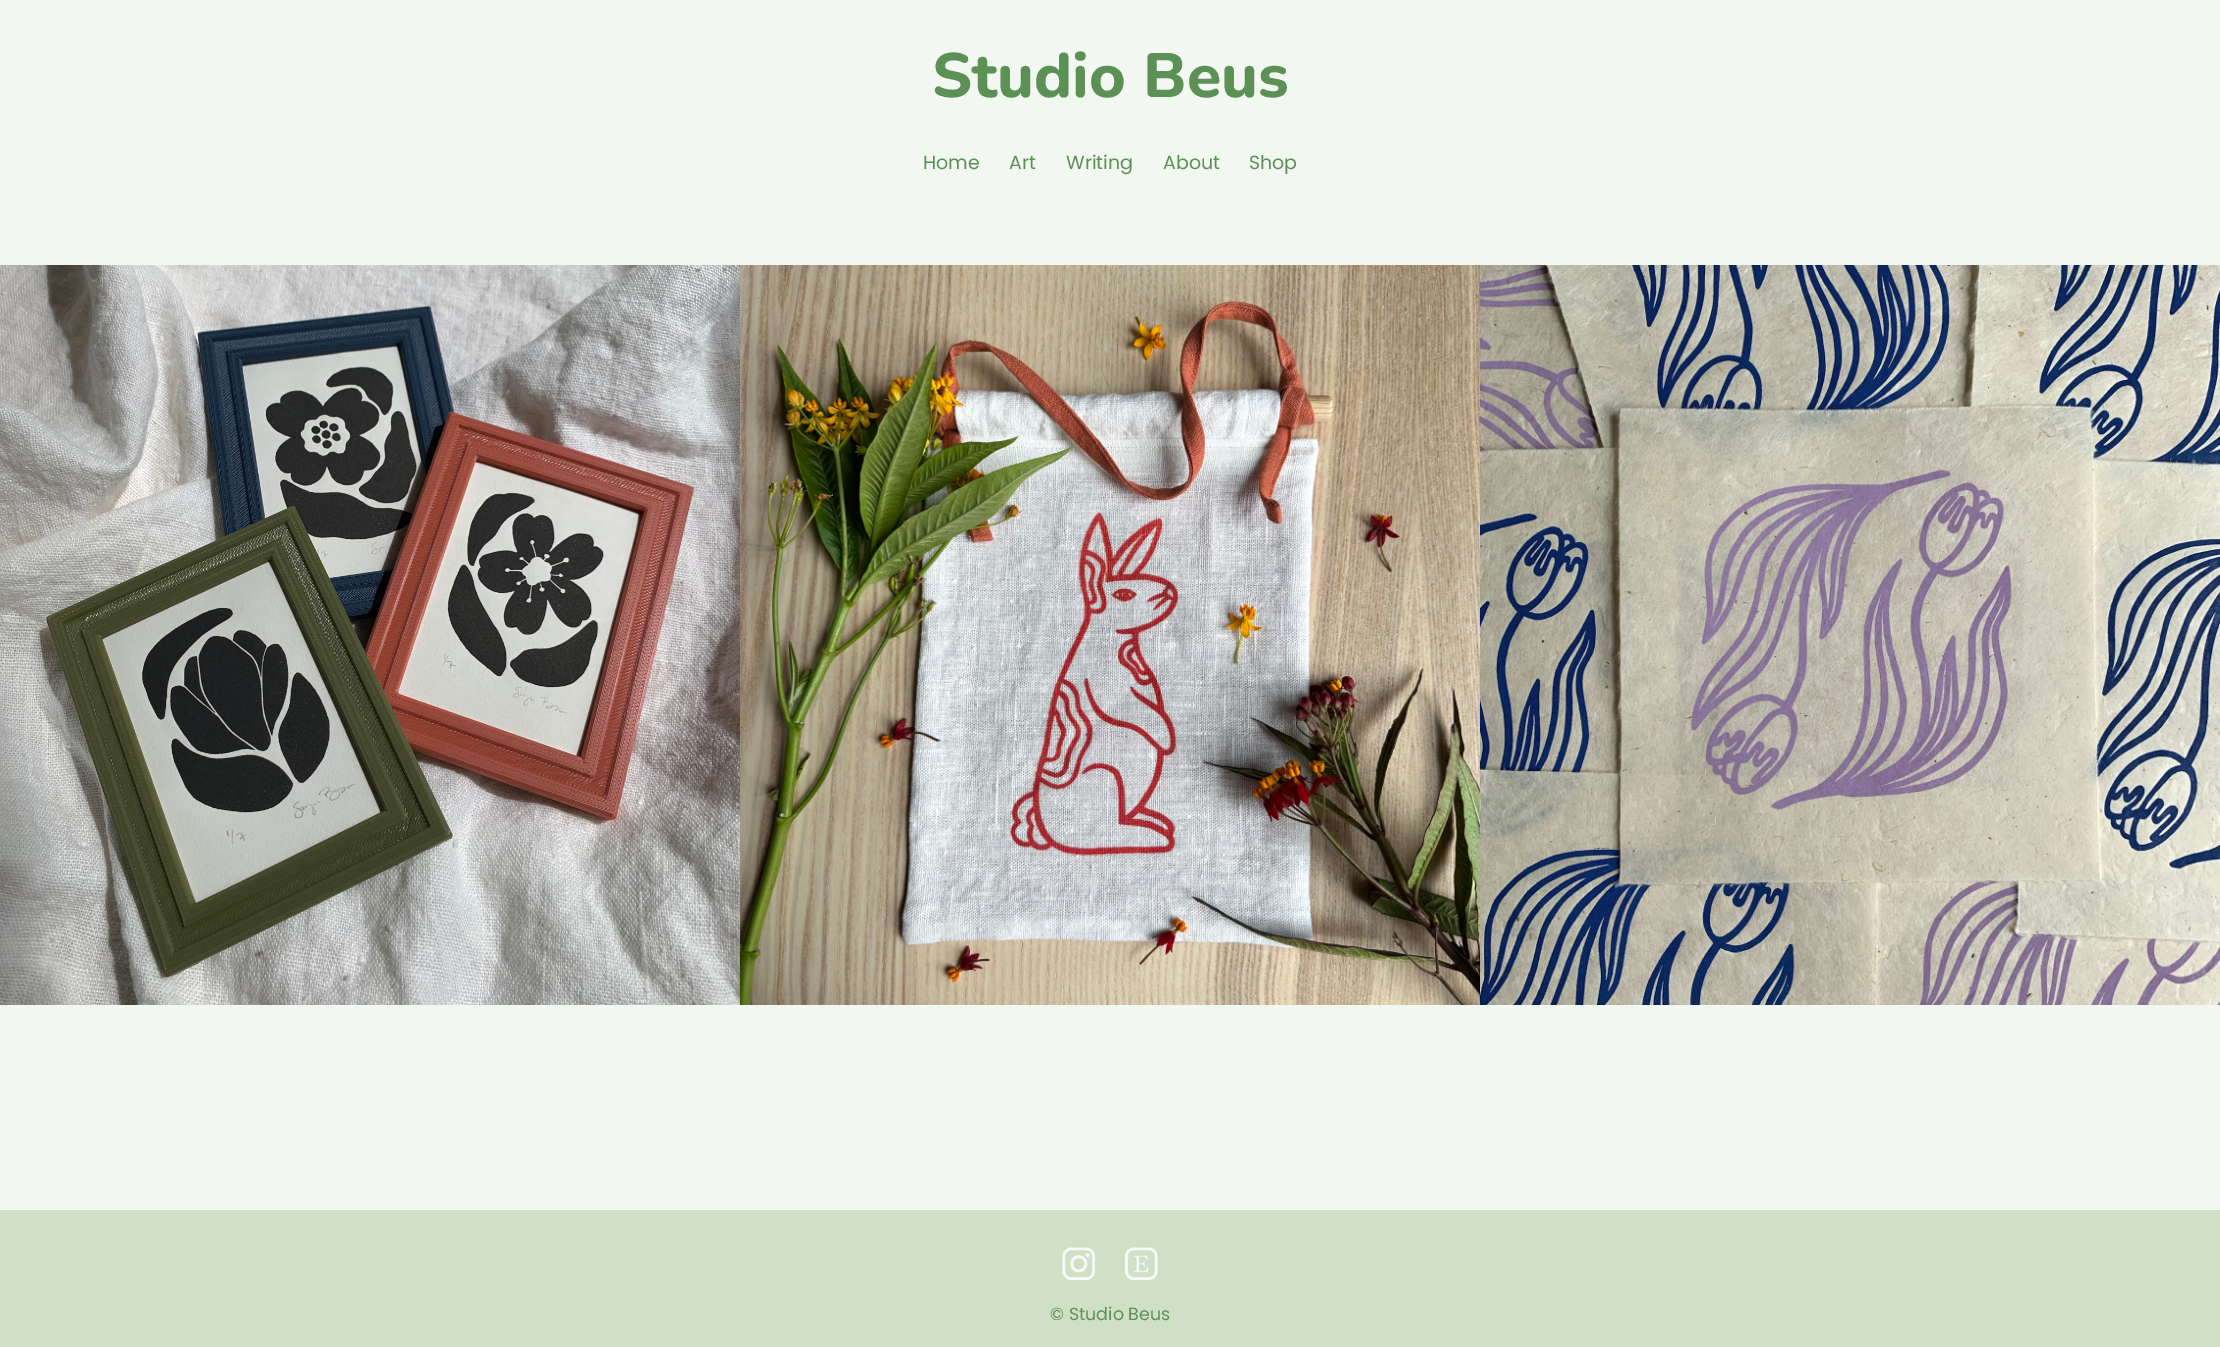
%!PS
<< /PageSize [2220 1347] >> setpagedevice
/C { dup -16 bitshift 255 div exch dup -8 bitshift 255 and 255 div exch 255 and 255 div setrgbcolor } def
/F { [ exch dup neg 0 0 3 -1 roll 0 0 ] selectfont } def
/T { moveto show } def
/R { rectfill } def
/I { 5 dict begin { /h /w /y /x /name } { exch def } forall
  gsave x y translate w h scale
  w h 8 [w 0 0 h 0 0] name (r) file false 3 colorimage grestore end } def
0 1347 translate 1 -1 scale
4 setmiterlimit
16#F2F7F1 C
0 0 2220 1347 R
/Nunito-ExtraBold 62.5 F
16#5C9155 C
(Studio Beus) 932 97 T
/Poppins-Regular 19 F
(Home) 923 169 T
(Art) 1009 169 T
(Writing) 1066 169 T
(About) 1163 169 T
(Shop) 1249 169 T
(1.rgb) 0 265 740 740 I
(2.rgb) 740 265 740 740 I
(3.rgb) 1480 265 740 740 I
16#D0E0C7 C
0 1210 2220 137 R
(4.rgb) 1062 1247 33 33 I
(5.rgb) 1125 1247 33 33 I
/Poppins-Regular 17.5 F
16#5C9155 C
(© Studio Beus) 1050 1320 T
showpage
